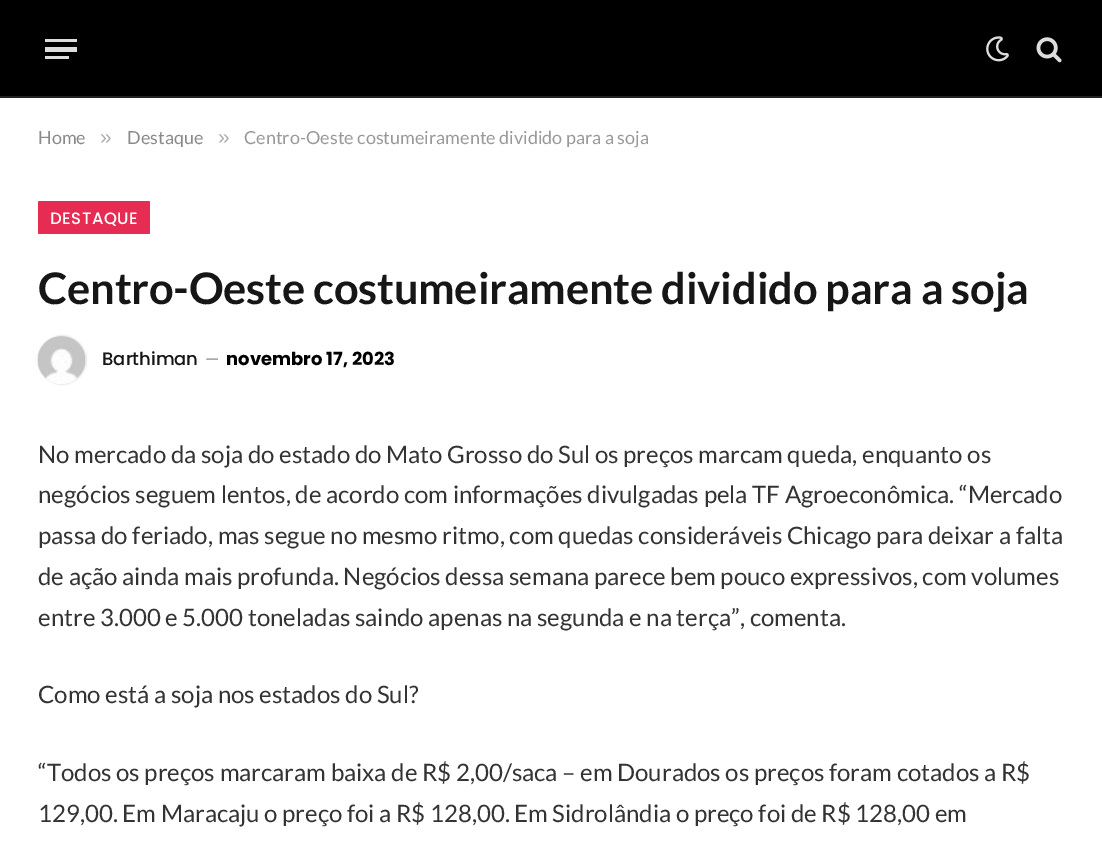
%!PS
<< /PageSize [1102 841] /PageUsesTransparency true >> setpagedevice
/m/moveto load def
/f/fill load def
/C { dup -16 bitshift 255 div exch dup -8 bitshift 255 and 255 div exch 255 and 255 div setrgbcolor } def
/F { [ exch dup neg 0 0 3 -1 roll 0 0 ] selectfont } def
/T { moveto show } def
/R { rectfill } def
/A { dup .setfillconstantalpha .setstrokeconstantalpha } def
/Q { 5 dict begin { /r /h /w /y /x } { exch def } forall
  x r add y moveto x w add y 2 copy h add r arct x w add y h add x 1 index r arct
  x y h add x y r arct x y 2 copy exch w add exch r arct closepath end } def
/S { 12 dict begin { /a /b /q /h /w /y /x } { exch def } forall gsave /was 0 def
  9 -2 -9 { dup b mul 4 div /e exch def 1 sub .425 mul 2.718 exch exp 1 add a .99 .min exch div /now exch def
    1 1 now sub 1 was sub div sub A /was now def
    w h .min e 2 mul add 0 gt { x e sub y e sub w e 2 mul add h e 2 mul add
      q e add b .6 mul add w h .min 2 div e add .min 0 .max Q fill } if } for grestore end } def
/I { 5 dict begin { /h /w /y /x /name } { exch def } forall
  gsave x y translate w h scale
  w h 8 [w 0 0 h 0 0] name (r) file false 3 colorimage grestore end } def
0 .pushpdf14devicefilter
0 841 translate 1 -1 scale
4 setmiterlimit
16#FFFFFF C
0 0 1102 841 R
16#000000 C
0 0 1102 96 R
16#222222 C
0 96 1102 2 R
16#DDDDDD C
45 56 24 3 R
45 39 32 3 R
45 47 32 5 R
(1.rgb) 986 36 23 26 I
(2.rgb) 1036 37 26 26 I
/Lato-Regular 18 F
16#8A8A8A C
(Home) 38 144 T
/LiberationSans-Regular 21 F
16#ADADAD C
(») 100 144 T
/Lato-Regular 18 F
16#8A8A8A C
(Destaque) 127 144 T
/LiberationSans-Regular 21 F
16#ADADAD C
(») 218 144 T
/Lato-Regular 18 F
16#999999 C
(Centro-Oeste costumeiramente dividido para a soja) 244 144 T
16#E62C53 C
38 201 112 33 1.5 Q f
/Poppins-Medium 16.5 F
16#FFFFFF C
50 224 m .5 0 (DESTAQUE) ashow
/Lato-Bold 43.5 F
16#161616 C
38 304 m -.2 0 (Centro-Oeste costumeiramente dividido para a soja) ashow
16#000000 C
38 336 48 48 24 1 .2 S
(3.rgb) 37 336 49 48 I
/Poppins-Medium 18 F
16#161616 C
(Barthiman) 102 365 T
/Poppins-Regular 16 F
16#8A8A8A C
(—) 205 365 T
/Poppins-Bold 18 F
16#000000 C
(novembro 17, 2023) 226 365 T
/Lato-Regular 24 F
16#333333 C
(No mercado da soja do estado do Mato Grosso do Sul os preços marcam queda, enquanto os) 38 463 T
(negócios seguem lentos, de acordo com informações divulgadas pela TF Agroeconômica. “Mercado) 38 503 T
(passa do feriado, mas segue no mesmo ritmo, com quedas consideráveis Chicago para deixar a falta) 38 544 T
(de ação ainda mais profunda. Negócios dessa semana parece bem pouco expressivos, com volumes) 38 585 T
(entre 3.000 e 5.000 toneladas saindo apenas na segunda e na terça”, comenta.) 38 626 T
(Como está a soja nos estados do Sul?) 38 703 T
(“Todos os preços marcaram baixa de R$ 2,00/saca – em Dourados os preços foram cotados a R$) 38 781 T
(129,00. Em Maracaju o preço foi a R$ 128,00. Em Sidrolândia o preço foi de R$ 128,00 em) 38 822 T
.poppdf14devicefilter showpage
